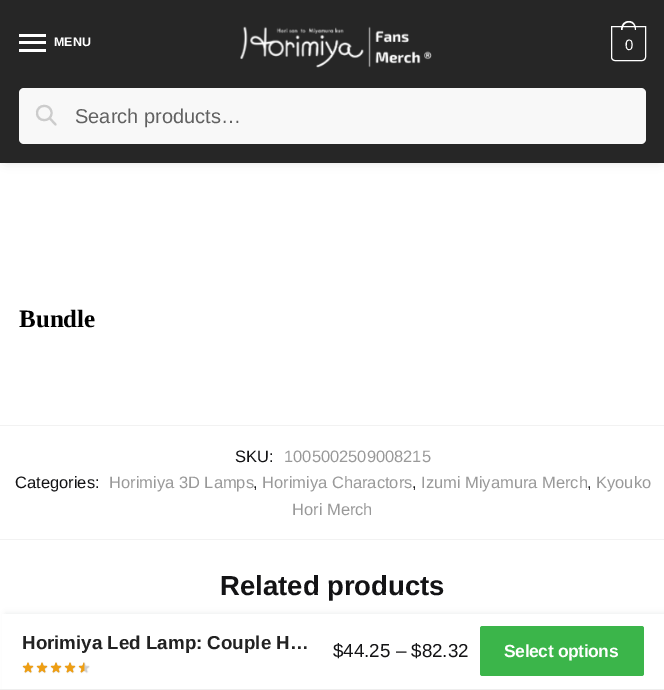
%!PS
<< /PageSize [664 690] /PageUsesTransparency true >> setpagedevice
/m/moveto load def
/l/rlineto load def
/c/rcurveto load def
/z/closepath load def
/f/fill load def
/s/stroke load def
/w/setlinewidth load def
/C { dup -16 bitshift 255 div exch dup -8 bitshift 255 and 255 div exch 255 and 255 div setrgbcolor } def
/F { [ exch dup neg 0 0 3 -1 roll 0 0 ] selectfont } def
/T { moveto show } def
/R { rectfill } def
/A { dup .setfillconstantalpha .setstrokeconstantalpha } def
/Q { 5 dict begin { /r /h /w /y /x } { exch def } forall
  x r add y moveto x w add y 2 copy h add r arct x w add y h add x 1 index r arct
  x y h add x y r arct x y 2 copy exch w add exch r arct closepath end } def
/S { 12 dict begin { /a /b /q /h /w /y /x } { exch def } forall gsave /was 0 def
  9 -2 -9 { dup b mul 4 div /e exch def 1 sub .425 mul 2.718 exch exp 1 add a .99 .min exch div /now exch def
    1 1 now sub 1 was sub div sub A /was now def
    w h .min e 2 mul add 0 gt { x e sub y e sub w e 2 mul add h e 2 mul add
      q e add b .6 mul add w h .min 2 div e add .min 0 .max Q fill } if } for grestore end } def
/I { 5 dict begin { /h /w /y /x /name } { exch def } forall
  gsave x y translate w h scale
  w h 8 [w 0 0 h 0 0] name (r) file false 3 colorimage grestore end } def
0 .pushpdf14devicefilter
0 690 translate 1 -1 scale
4 setmiterlimit
16#FFFFFF C
0 0 664 690 R
16#262626 C
0 0 664 88 R
16#FFFFFF C
19 34 27 3 R
19 41 27 3 R
/LiberationSans-Bold 12.5 F
(MENU) 54 46 T
19 49 27 3 R
(1.rgb) 240 26 192 42 I
611.5 26.5 m 34 0 l 0 30.5 l 0 2 -1.5 3.5 -3.5 3.5 c -27 0 l -2 0 -3.5 -1.5 -3.5 -3.5 c z s
629 21 m 5 0 7 4.5 7 9 c -15 0 l 0 -4.5 2.5 -9 8 -9 c z 629 22.5 m 4 0 6 3.5 6 7.5 c -12.5 0 l 0 -4 2 -7.5 6.5 -7.5 c z eofill
/LiberationSans-Regular 15 F
625 50 m -1 0 (0) ashow
16#000000 C
6 98 653 62 0 6 .18 S
16#262626 C
0 88 664 75 R
16#F8F8F8 C
19 88 627 56 5 Q f
16#CCCCCC C
2.1 w
1 setlinecap
1 setlinejoin
55.5 124.5 m -6 -6.5 l 51.5 113 m 0 9.5 -14.5 9.5 -14.5 0 c 0 -9.5 14.5 -9.5 14.5 0 c z s
/LiberationSans-Regular 20 F
16#616161 C
(Search products…) 75 123 T
/LiberationSerif-Bold 25 F
16#000000 C
(Bundle) 19 327 T
16#F2F2F2 C
0 425 664 1 R
0 539 664 1 R
/LiberationSans-Regular 16.5 F
16#131315 C
(SKU:) 235 462 T
16#999999 C
(1005002509008215) 284 462 T
16#131315 C
(Categories:) 15 488 T
16#999999 C
(Horimiya 3D Lamps) 109 488 T
16#131315 C
(,) 253 488 T
16#999999 C
(Horimiya Charactors) 262 488 T
16#131315 C
(,) 412 488 T
16#999999 C
(Izumi Miyamura Merch) 421 488 T
16#131315 C
(,) 587 488 T
16#999999 C
(Kyouko) 596 488 T
(Hori Merch) 292 515 T
/LiberationSans-Bold 27.5 F
16#131315 C
(Related products) 220 595 T
16#1B1F23 C
6 614 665 76 0 3 .1 S
16#FFFFFF C
2 614 662 75 R
16#EEEEEE C
0 689 664 1 R
/LiberationSans-Bold 18.75 F
16#222222 C
(Horimiya Led Lamp: Couple H…) 22 649 T
(2.rgb) 22 662 68 12 I
(3.rgb) 22 662 63 11 I
/LiberationSans-Regular 18.75 F
16#131315 C
($44.25 – $82.32) 333 657 T
16#3BB54A C
480 626 164 50 2.5 Q f
/LiberationSans-Bold 17.5 F
16#FFFFFF C
504 657 m -.4 0 (Select options) ashow
.poppdf14devicefilter showpage
